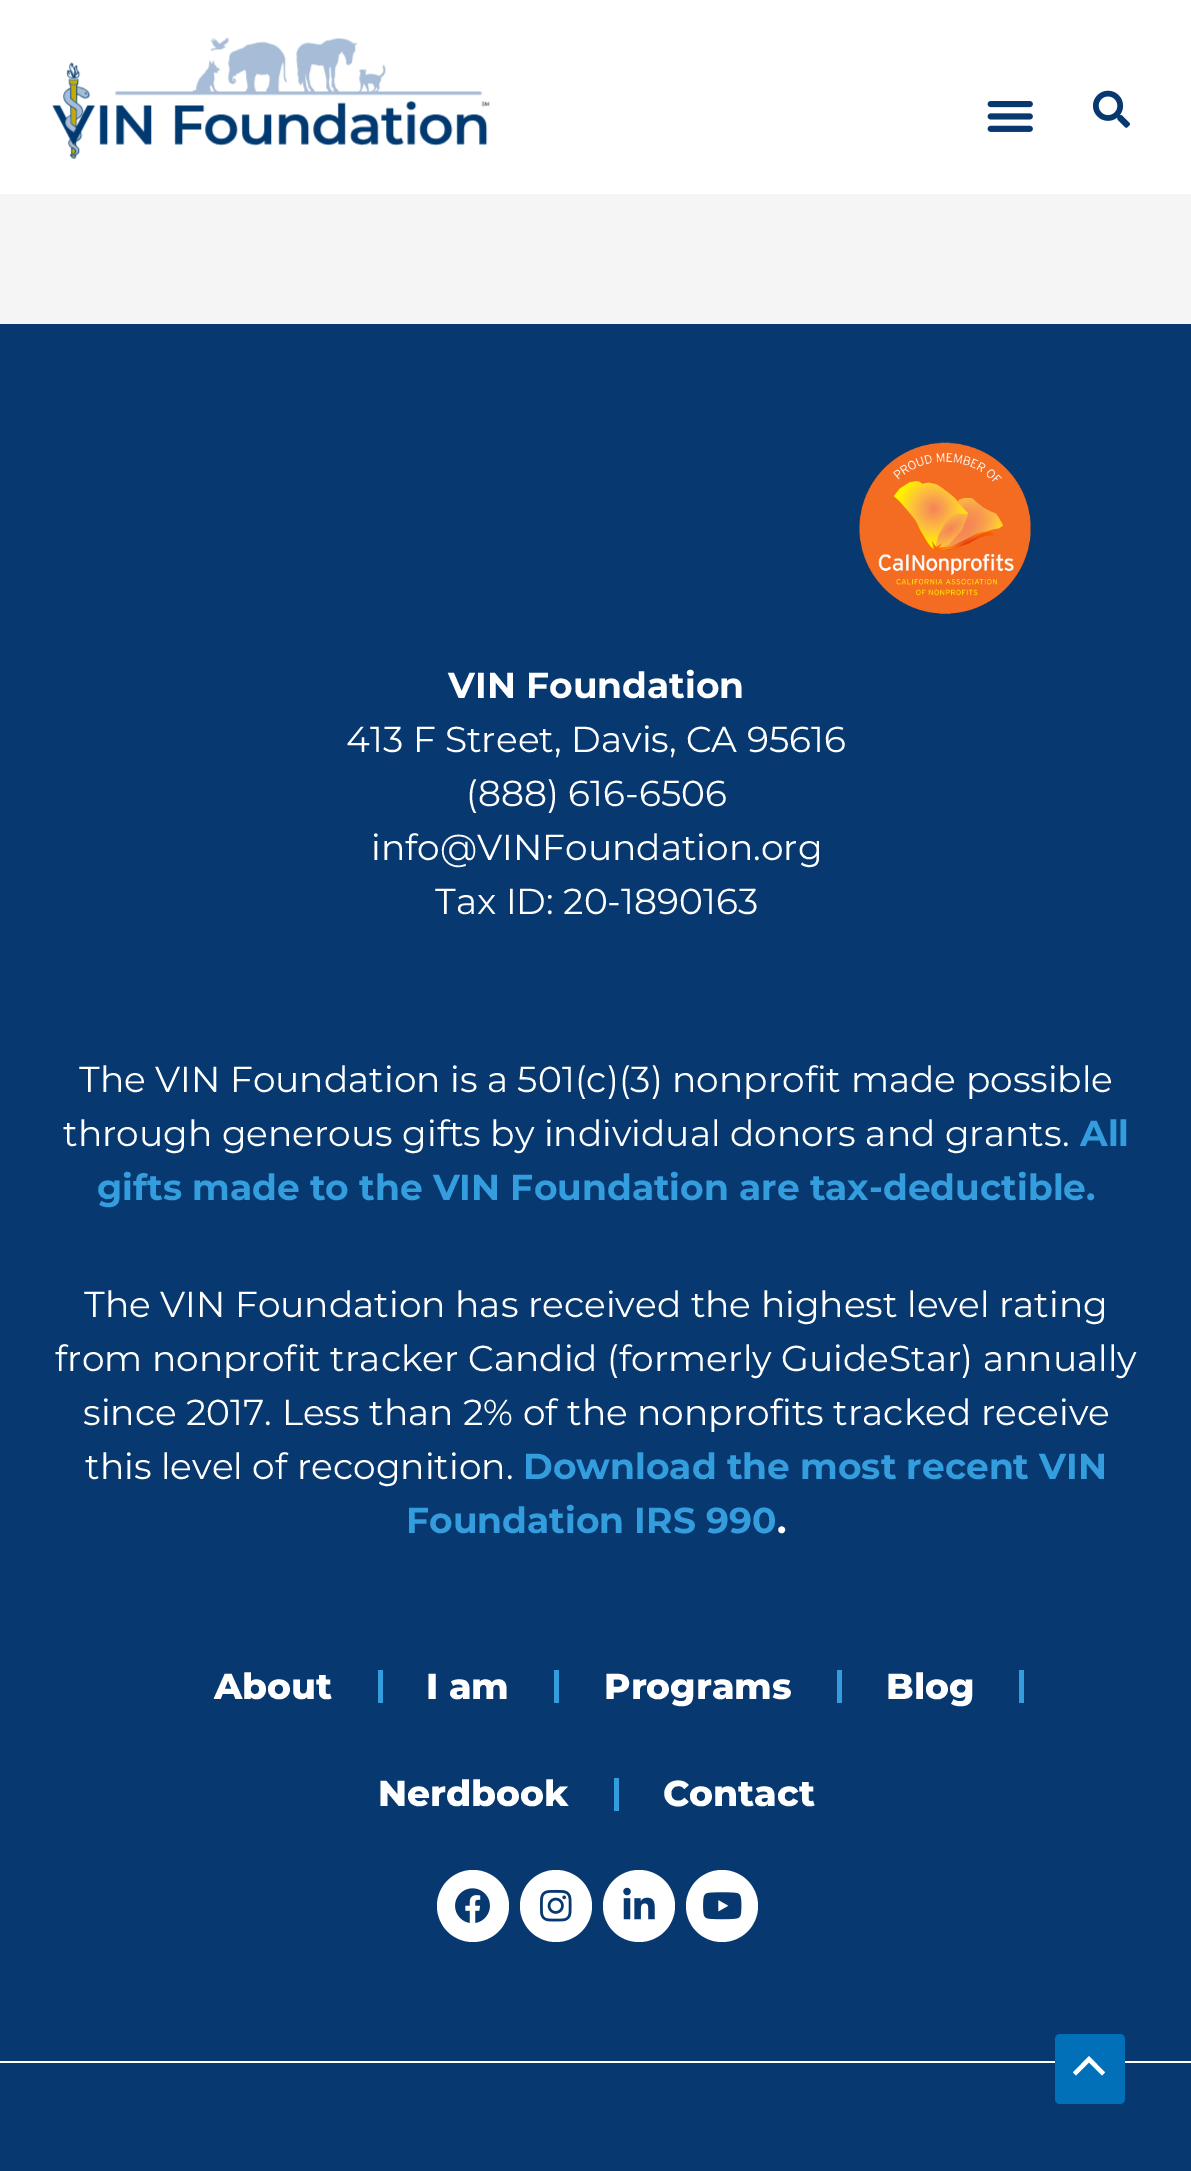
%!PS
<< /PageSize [1191 2171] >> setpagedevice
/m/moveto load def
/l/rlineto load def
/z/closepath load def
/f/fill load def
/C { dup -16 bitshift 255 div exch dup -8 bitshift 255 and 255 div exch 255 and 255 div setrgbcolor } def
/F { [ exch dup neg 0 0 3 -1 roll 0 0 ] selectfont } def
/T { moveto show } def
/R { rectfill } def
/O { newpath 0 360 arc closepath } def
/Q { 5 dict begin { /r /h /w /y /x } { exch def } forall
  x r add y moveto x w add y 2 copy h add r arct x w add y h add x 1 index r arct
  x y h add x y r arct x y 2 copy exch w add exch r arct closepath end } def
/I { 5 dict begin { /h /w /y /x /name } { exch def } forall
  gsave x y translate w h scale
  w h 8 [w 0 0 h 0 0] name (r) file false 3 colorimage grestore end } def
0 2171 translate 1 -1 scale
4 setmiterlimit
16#F5F5F5 C
0 0 1191 2171 R
16#FFFFFF C
0 0 1191 194 R
(1.rgb) 52 37 438 122 I
(2.rgb) 987 101 46 31 I
(3.rgb) 1092 90 38 38 I
16#07386F C
0 324 1191 1737 R
(4.rgb) 859 442 172 172 I
/Montserrat-Bold 36 F
16#FFFFFF C
(VIN Foundation) 448 698 T
/Montserrat-Regular 36 F
(413 F Street, Davis, CA 95616) 346 752 T
(\(888\) 616-6506) 466 806 T
(info@VINFoundation.org) 371 860 T
(Tax ID: 20-1890163) 435 914 T
(The VIN Foundation is a 501\(c\)\(3\) nonprofit made possible) 79 1092 T
(through generous gifts by individual donors and grants.) 63 1146 T
/Montserrat-Bold 36 F
16#339DDE C
(All) 1080 1146 T
(gifts made to the VIN Foundation are tax-deductible.) 97 1200 T
/Montserrat-Regular 36 F
16#FFFFFF C
(The VIN Foundation has received the highest level rating) 84 1317 T
(from nonprofit tracker Candid \(formerly GuideStar\) annually) 55 1371 T
(since 2017. Less than 2% of the nonprofits tracked receive) 83 1425 T
(this level of recognition.) 85 1479 T
/Montserrat-Bold 36 F
16#339DDE C
(Download the most recent VIN) 523 1479 T
(Foundation IRS 990) 406 1533 T
16#FFFFFF C
(.) 777 1533 T
/Montserrat-ExtraBold 36 F
(About) 214 1699 T
16#339DDE C
378 1670 5 33 R
16#FFFFFF C
(I am) 426 1699 T
16#339DDE C
554 1670 5 33 R
16#FFFFFF C
(Programs) 604 1699 T
16#339DDE C
837 1670 5 33 R
16#FFFFFF C
(Blog) 886 1699 T
16#339DDE C
1019 1670 5 33 R
16#FFFFFF C
(Nerdbook) 378 1806 T
16#339DDE C
614 1778 5 33 R
16#FFFFFF C
(Contact) 663 1806 T
473 1906 36 O f
(5.rgb) 455 1888 35 35 I
556 1906 36 O f
(6.rgb) 540 1889 32 33 I
639 1906 36 O f
(7.rgb) 623 1887 32 33 I
722 1906 36 O f
(8.rgb) 703 1892 39 28 I
16#07386F C
0 2063 1191 108 R
16#FFFFFF C
0 2061 1191 2 R
16#0170B9 C
1055 2034 70 70 5 Q f
16#FFFFFF C
1105 2072.5 m -16 -16.5 l -16 16.5 l 3 3 l 13 -13 l 13 13 l z f
showpage
